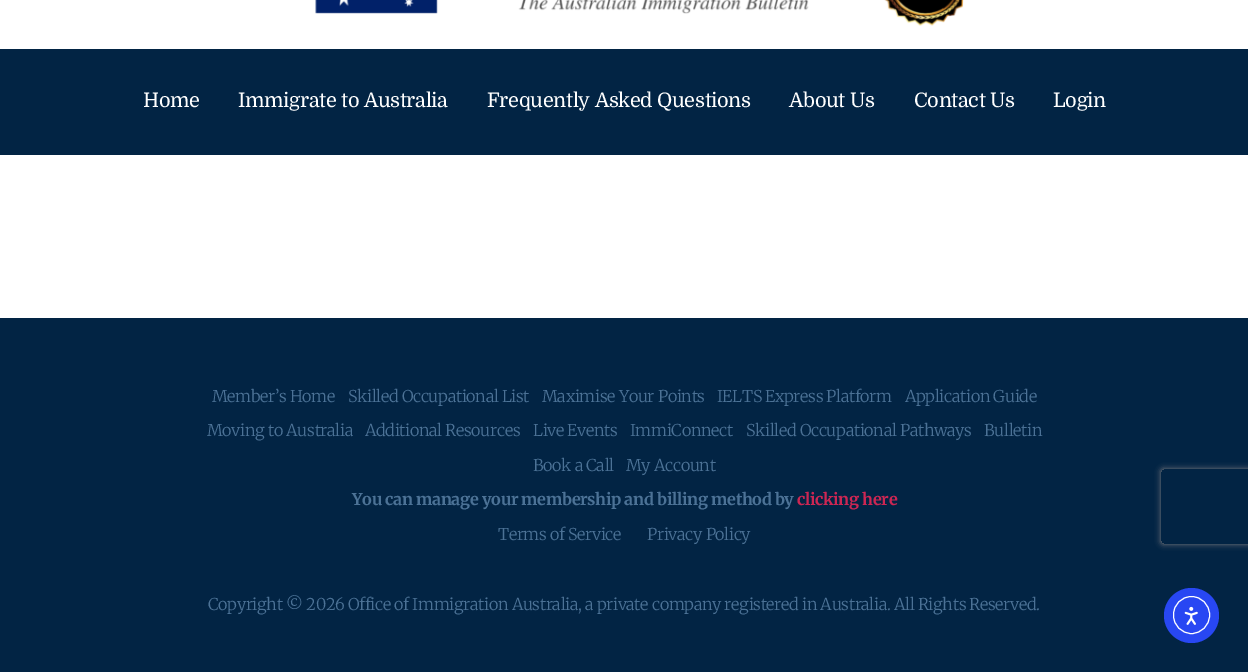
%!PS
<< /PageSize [1248 672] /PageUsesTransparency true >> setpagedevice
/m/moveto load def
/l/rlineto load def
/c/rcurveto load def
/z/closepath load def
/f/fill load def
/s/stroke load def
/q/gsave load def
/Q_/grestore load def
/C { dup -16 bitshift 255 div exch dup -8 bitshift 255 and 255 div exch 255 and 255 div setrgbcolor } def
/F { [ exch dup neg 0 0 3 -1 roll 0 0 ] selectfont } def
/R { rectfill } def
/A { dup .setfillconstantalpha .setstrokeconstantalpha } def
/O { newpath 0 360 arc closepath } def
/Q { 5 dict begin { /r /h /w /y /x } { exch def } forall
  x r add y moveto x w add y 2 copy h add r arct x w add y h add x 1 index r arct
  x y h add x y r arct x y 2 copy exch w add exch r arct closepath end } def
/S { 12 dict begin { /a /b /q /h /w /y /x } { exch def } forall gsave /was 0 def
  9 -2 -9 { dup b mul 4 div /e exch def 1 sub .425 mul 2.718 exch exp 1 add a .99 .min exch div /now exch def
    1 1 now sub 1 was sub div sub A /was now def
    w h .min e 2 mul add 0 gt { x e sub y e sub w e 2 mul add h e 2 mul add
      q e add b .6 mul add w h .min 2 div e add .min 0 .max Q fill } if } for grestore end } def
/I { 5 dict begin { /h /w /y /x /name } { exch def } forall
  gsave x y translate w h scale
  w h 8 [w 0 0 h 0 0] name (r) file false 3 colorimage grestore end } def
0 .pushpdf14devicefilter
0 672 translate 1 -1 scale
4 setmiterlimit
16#FFFFFF C
0 0 1248 672 R
(1.rgb) 315 0 649 26 I
16#022444 C
0 49 1248 106 R
/Domine-Regular 20 F
16#FFFFFF C
143 107 m -.34 0 (Home) ashow
238 107 m -.34 0 (Immigrate to Australia) ashow
487 107 m -.34 0 (Frequently Asked Questions) ashow
789 107 m -.34 0 (About Us) ashow
914 107 m -.34 0 (Contact Us) ashow
1053 107 m -.34 0 (Login) ashow
16#022444 C
0 318 1248 354 R
/Merriweather-Light 16.25 F
16#4C7296 C
212 402 m -.34 0 (Member’s Home) ashow
348 402 m -.34 0 (Skilled Occupational List) ashow
542 402 m -.34 0 (Maximise Your Points) ashow
717 402 m -.34 0 (IELTS Express Platform) ashow
905 402 m -.34 0 (Application Guide) ashow
207 436 m -.34 0 (Moving to Australia) ashow
365 436 m -.34 0 (Additional Resources) ashow
533 436 m -.34 0 (Live Events) ashow
630 436 m -.34 0 (ImmiConnect) ashow
746 436 m -.34 0 (Skilled Occupational Pathways) ashow
984 436 m -.34 0 (Bulletin) ashow
533 471 m -.34 0 (Book a Call) ashow
626 471 m -.34 0 (My Account) ashow
/Merriweather-Bold 16.25 F
352 505 m -.34 0 (You can manage your membership and billing method by) ashow
16#CD2653 C
797 505 m -.34 0 (clicking here) ashow
/Merriweather-Light 16.25 F
16#4C7296 C
498 540 m -.34 0 (Terms of Service) ashow
647 540 m -.34 0 (Privacy Policy) ashow
208 610 m -.34 0 (Copyright © 2026 Office of Immigration Australia, a private company registered in Australia. All Rights Reserved.) ashow
q
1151 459 m 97 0 l 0 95 l -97 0 l z 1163.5 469 m 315 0 l 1.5 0 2.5 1 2.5 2.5 c 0 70 l 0 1.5 -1 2.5 -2.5 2.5 c -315 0 l -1.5 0 -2.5 -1 -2.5 -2.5 c 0 -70 l 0 -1.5 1 -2.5 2.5 -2.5 c z eoclip newpath
16#808080 C
1161 469 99 75 2.5 3 1 S
Q_
16#2847F3 C
1191.5 615.5 27.5 O f
16#FFFFFF C
1173.5 596.5 36 37 18 Q s
(2.rgb) 1184 606 14 19 I
.poppdf14devicefilter showpage
